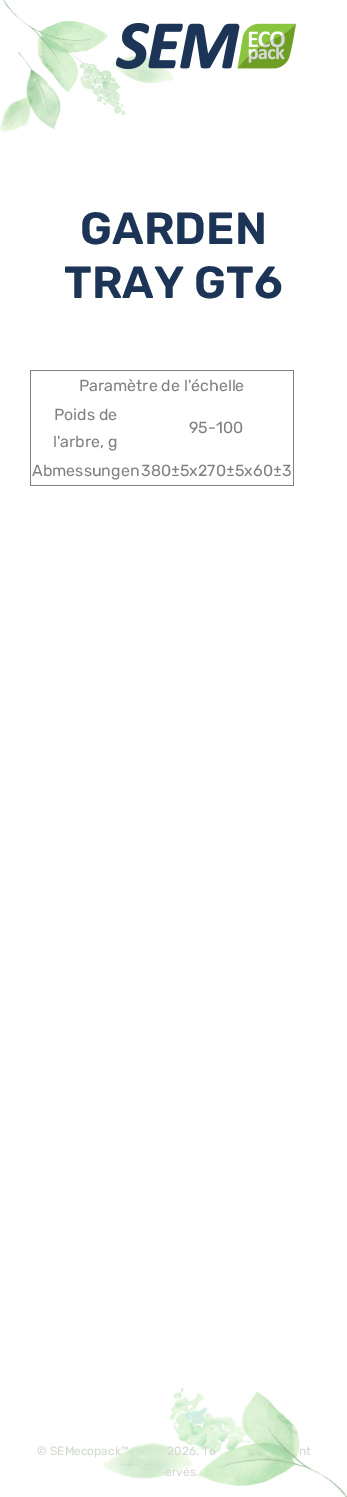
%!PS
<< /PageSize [347 1497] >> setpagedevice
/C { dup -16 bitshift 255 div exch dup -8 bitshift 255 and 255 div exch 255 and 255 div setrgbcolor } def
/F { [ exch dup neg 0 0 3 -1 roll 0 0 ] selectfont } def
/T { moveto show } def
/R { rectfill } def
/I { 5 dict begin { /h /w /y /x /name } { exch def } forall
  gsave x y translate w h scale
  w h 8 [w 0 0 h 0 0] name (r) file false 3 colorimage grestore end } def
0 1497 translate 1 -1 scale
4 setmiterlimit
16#FFFFFF C
0 0 347 1497 R
(3.rgb) 0 0 174 132 I
(1.rgb) 116 23 180 46 I
(2.rgb) 104 1387 243 110 I
/Rubik-SemiBold 45 F
16#1C3456 C
(GARDEN) 80 244 T
(TRAY GT6) 64 298 T
16#808080 C
30 370 264 1 R
293 370 1 116 R
30 485 264 1 R
30 370 1 116 R
/Rubik-Regular 16 F
(Paramètre de l'échelle) 79 391 T
(Poids de) 54 420 T
(l'arbre, g) 53 447 T
(95-100) 189 433 T
(Abmessungen) 32 476 T
(380±5х270±5х60±3) 141 476 T
/Rubik-Regular 12 F
16#D0D9CE C
(© SEMecopack™) 37 1455 T
(2026. To) 167 1455 T
(nt) 299 1455 T
(ervés.) 165 1476 T
showpage
